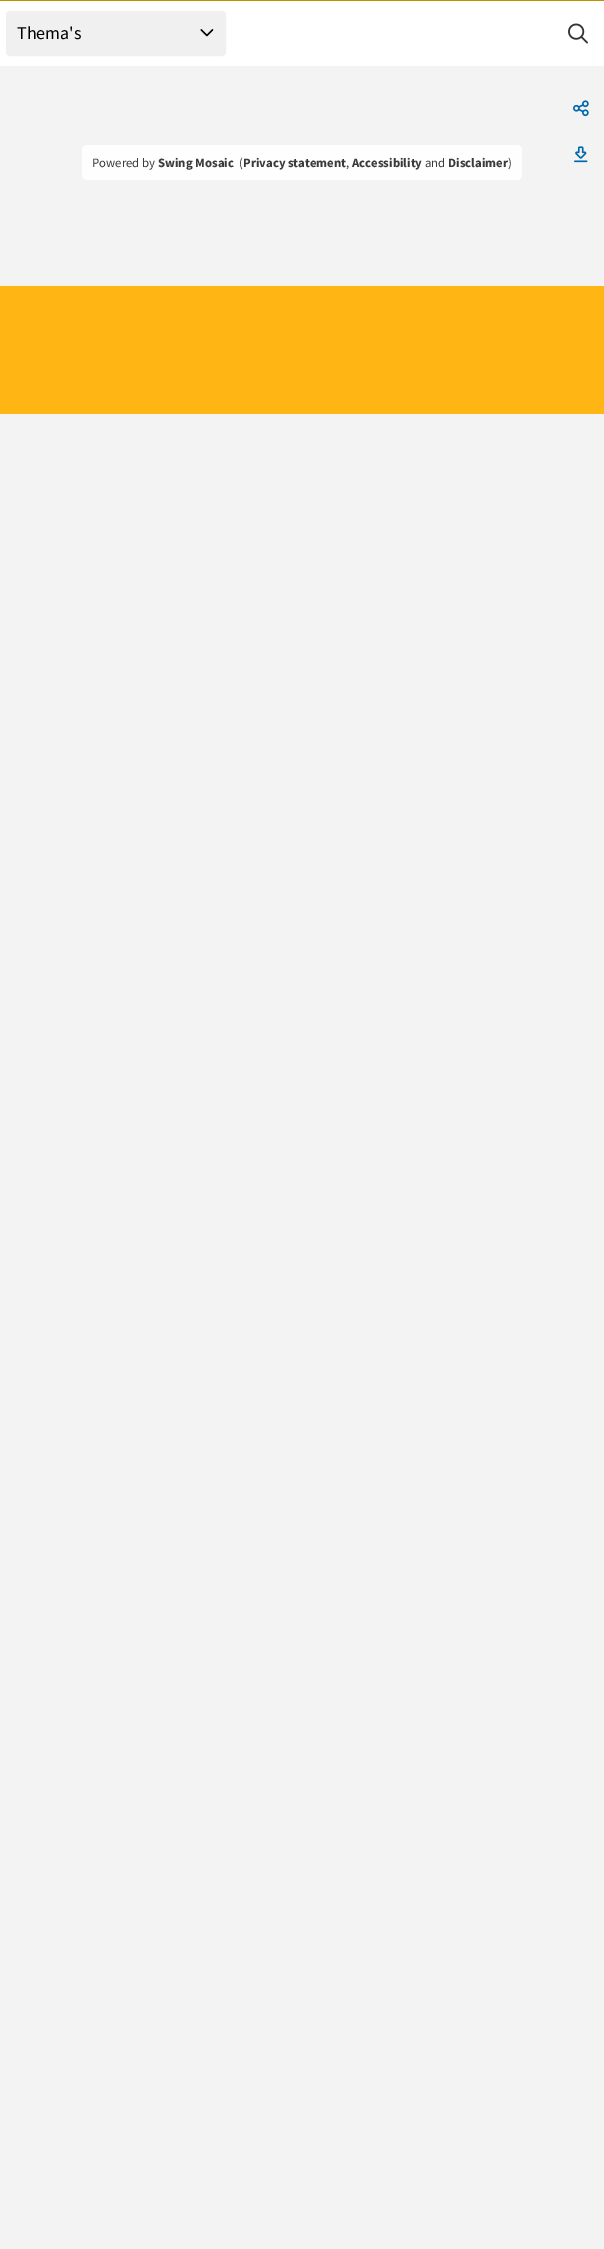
%!PS
<< /PageSize [604 2249] >> setpagedevice
/f/fill load def
/s/stroke load def
/q/gsave load def
/Q_/grestore load def
/C { dup -16 bitshift 255 div exch dup -8 bitshift 255 and 255 div exch 255 and 255 div setrgbcolor } def
/F { [ exch dup neg 0 0 3 -1 roll 0 0 ] selectfont } def
/T { moveto show } def
/R { rectfill } def
/Q { 5 dict begin { /r /h /w /y /x } { exch def } forall
  x r add y moveto x w add y 2 copy h add r arct x w add y h add x 1 index r arct
  x y h add x y r arct x y 2 copy exch w add exch r arct closepath end } def
/I { 5 dict begin { /h /w /y /x /name } { exch def } forall
  gsave x y translate w h scale
  w h 8 [w 0 0 h 0 0] name (r) file false 3 colorimage grestore end } def
0 2249 translate 1 -1 scale
4 setmiterlimit
16#F3F3F3 C
0 0 604 2249 R
16#FFFFFF C
0 1 604 65 R
16#BF9000 C
0 0 604 1 R
16#F0F0F0 C
6.5 11.5 219 44 3.5 Q q f Q_
s
/SourceSansPro-Regular 18 F
16#000000 C
(Thema's) 17 39 T
(1.rgb) 200 29 14 8 I
(2.rgb) 568 23 20 21 I
16#FEFEFE C
82 145 440 35 5 Q f
/SourceSansPro-Regular 12.75 F
16#3A3A3A C
(Powered by) 92 167 T
/SourceSansPro-Bold 12.75 F
(Swing Mosaic) 158 167 T
/SourceSansPro-Regular 12.75 F
(\() 239 167 T
/SourceSansPro-Bold 12.75 F
(Privacy statement) 243 167 T
/SourceSansPro-Regular 12.75 F
(,) 346 167 T
/SourceSansPro-Bold 12.75 F
(Accessibility) 352 167 T
/SourceSansPro-Regular 12.75 F
(and) 425 167 T
/SourceSansPro-Bold 12.75 F
(Disclaimer) 448 167 T
/SourceSansPro-Regular 12.75 F
(\)) 508 167 T
(3.rgb) 573 100 16 17 I
(4.rgb) 574 146 14 17 I
16#FFB513 C
0 286 604 128 R
showpage
